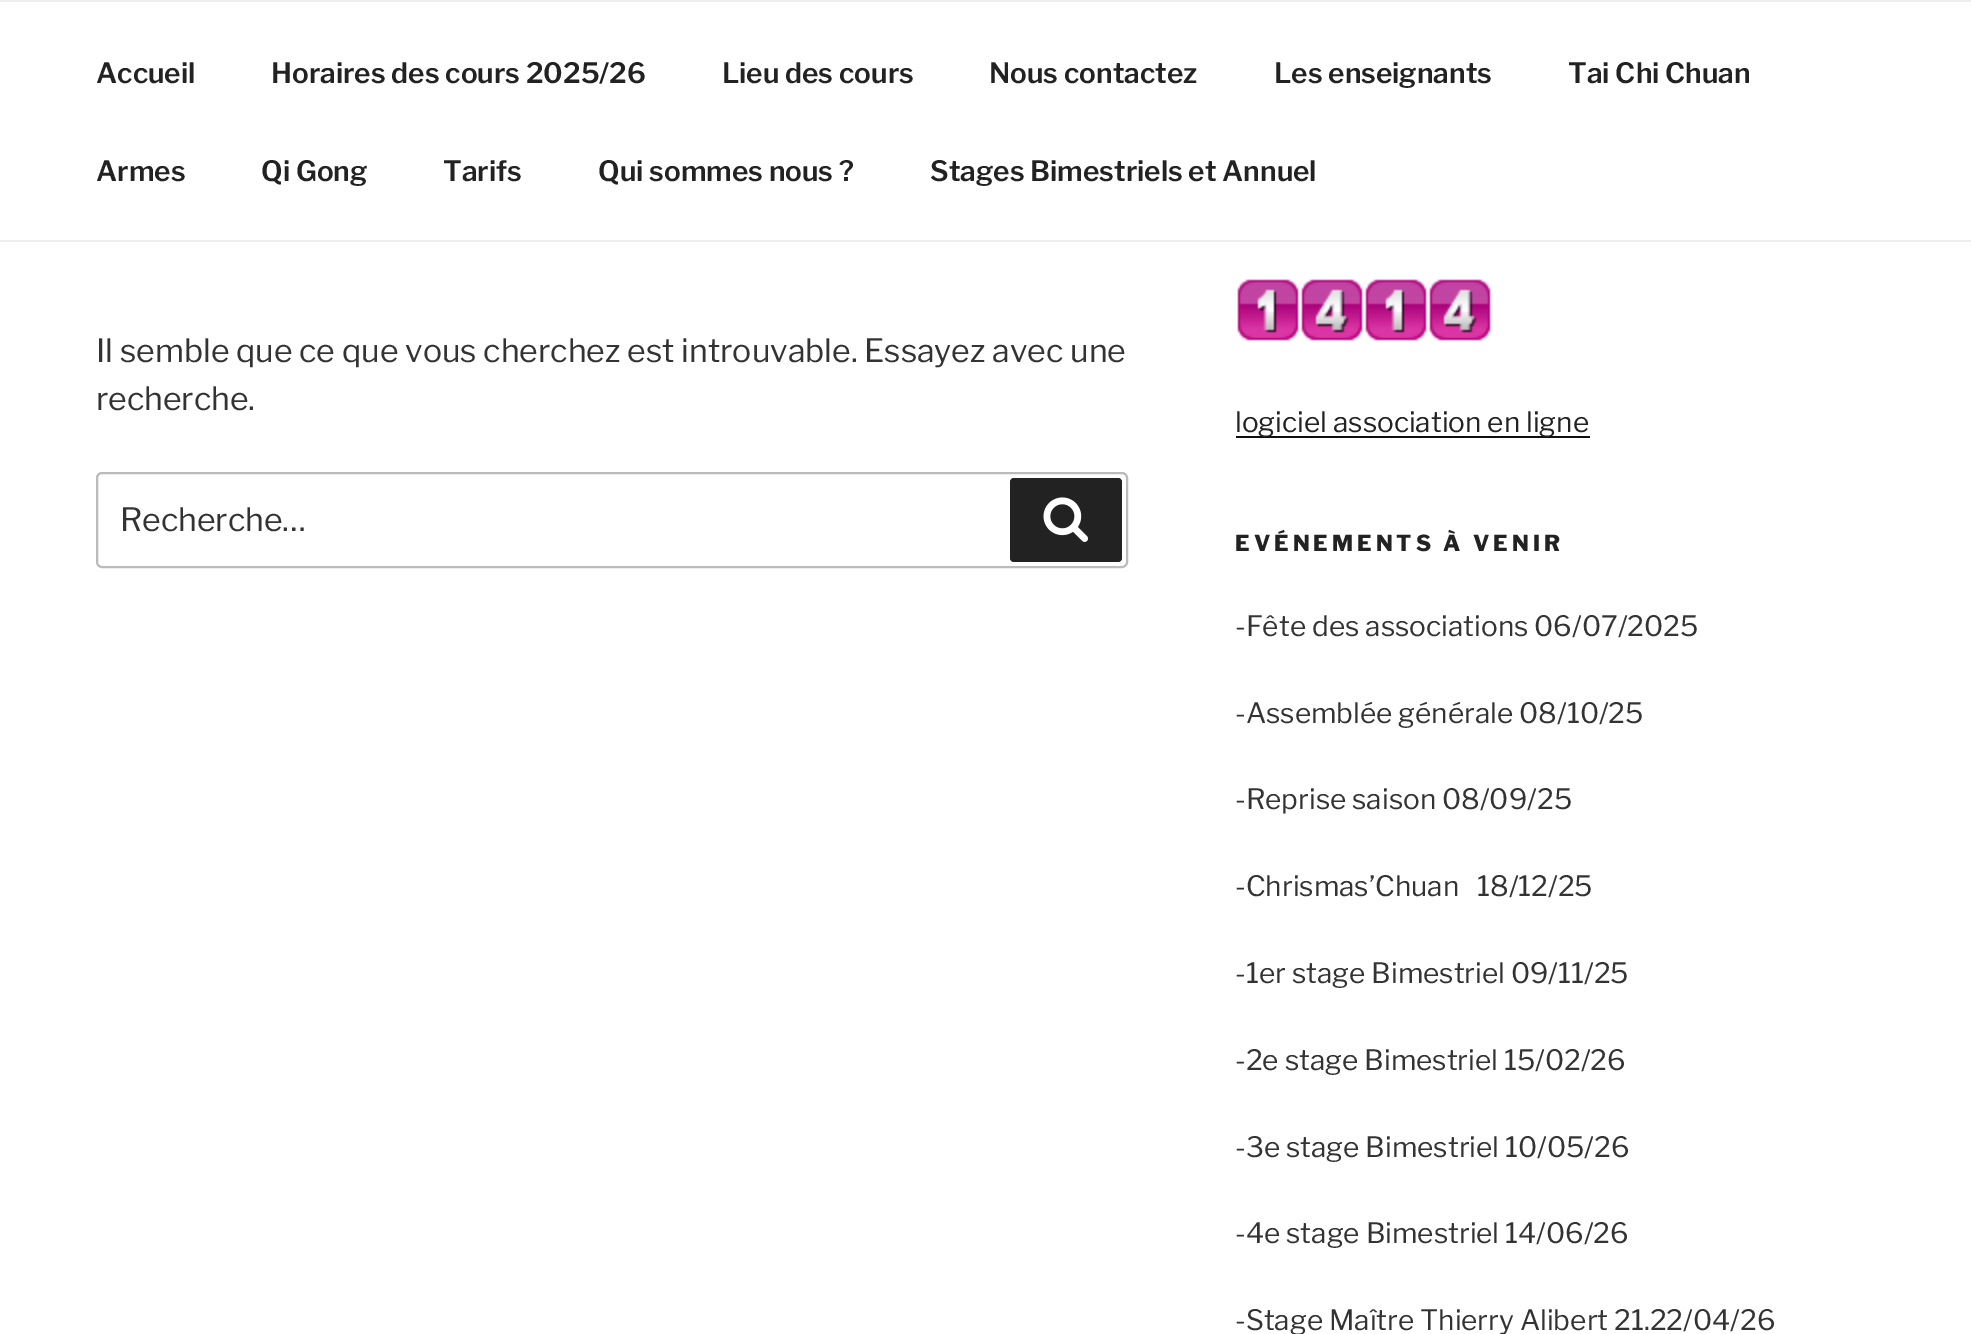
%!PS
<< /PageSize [1971 1334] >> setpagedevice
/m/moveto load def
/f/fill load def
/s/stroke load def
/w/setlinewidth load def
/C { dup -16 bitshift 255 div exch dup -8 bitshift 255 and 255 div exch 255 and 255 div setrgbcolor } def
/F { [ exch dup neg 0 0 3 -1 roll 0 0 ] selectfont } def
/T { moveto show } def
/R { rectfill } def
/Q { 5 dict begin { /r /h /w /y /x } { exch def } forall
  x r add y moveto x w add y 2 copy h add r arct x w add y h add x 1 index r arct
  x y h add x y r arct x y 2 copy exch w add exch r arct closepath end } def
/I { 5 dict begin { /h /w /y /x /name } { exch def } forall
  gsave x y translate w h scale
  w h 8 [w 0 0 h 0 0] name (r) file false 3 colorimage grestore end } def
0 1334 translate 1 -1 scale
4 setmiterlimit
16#FFFFFF C
0 0 1971 1334 R
16#EEEEEE C
0 0 1971 2 R
0 240 1971 2 R
/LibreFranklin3-Thin 28 F
16#222222 C
(Accueil) 96 83 T
(Horaires des cours 2025/26) 271 83 T
(Lieu des cours) 722 83 T
(Nous contactez) 989 83 T
(Les enseignants) 1274 83 T
(Tai Chi Chuan) 1568 83 T
(Armes) 96 181 T
(Qi Gong) 261 181 T
(Tarifs) 443 181 T
(Qui sommes nous ?) 598 181 T
(Stages Bimestriels et Annuel) 930 181 T
/LibreFranklin-Thin 32 F
16#333333 C
(Il semble que ce que vous cherchez est introuvable. Essayez avec une) 96 362 T
(recherche.) 96 410 T
16#BBBBBB C
2 w
97 473 1030 94 5 Q s
16#333333 C
(Recherche…) 120 531 T
16#222222 C
1010 478 112 84 4 Q f
(1.rgb) 1043 497 46 45 I
(2.rgb) 1237 279 254 62 I
16#0F0F0F C
1236 436 354 2 R
/LibreFranklin-Thin 28 F
16#222222 C
(logiciel association en ligne) 1235 432 T
/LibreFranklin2-Thin 22 F
1235 551 m 4 0 (EVÉNEMENTS À VENIR) ashow
/LibreFranklin-Thin 28 F
16#333333 C
(-Fête des associations 06/07/2025) 1235 636 T
(-Assemblée générale 08/10/25) 1235 723 T
(-Reprise saison 08/09/25) 1235 809 T
(-Chrismas’Chuan   18/12/25) 1235 896 T
(-1er stage Bimestriel 09/11/25) 1235 983 T
(-2e stage Bimestriel 15/02/26) 1235 1070 T
(-3e stage Bimestriel 10/05/26) 1235 1157 T
(-4e stage Bimestriel 14/06/26) 1235 1243 T
(-Stage Maître Thierry Alibert 21.22/04/26) 1235 1330 T
showpage
